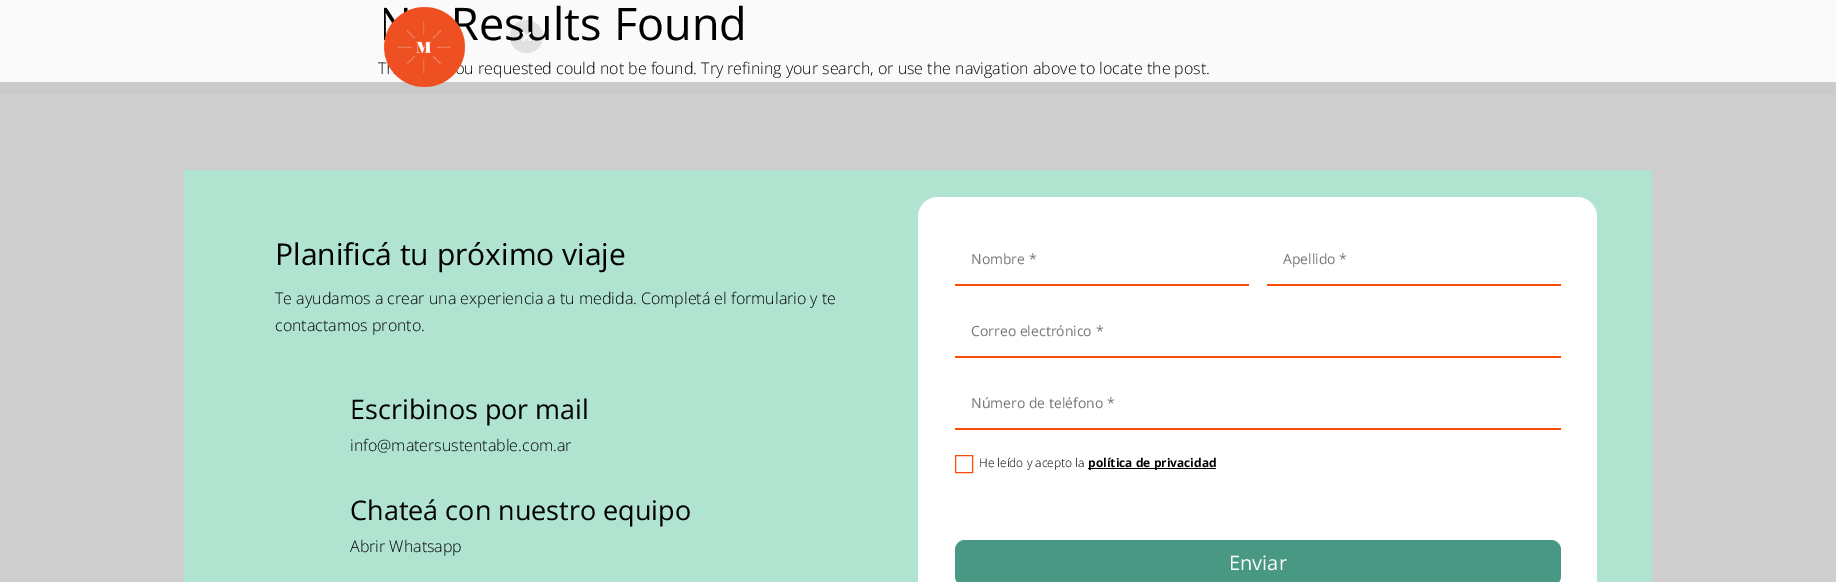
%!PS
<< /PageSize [1836 582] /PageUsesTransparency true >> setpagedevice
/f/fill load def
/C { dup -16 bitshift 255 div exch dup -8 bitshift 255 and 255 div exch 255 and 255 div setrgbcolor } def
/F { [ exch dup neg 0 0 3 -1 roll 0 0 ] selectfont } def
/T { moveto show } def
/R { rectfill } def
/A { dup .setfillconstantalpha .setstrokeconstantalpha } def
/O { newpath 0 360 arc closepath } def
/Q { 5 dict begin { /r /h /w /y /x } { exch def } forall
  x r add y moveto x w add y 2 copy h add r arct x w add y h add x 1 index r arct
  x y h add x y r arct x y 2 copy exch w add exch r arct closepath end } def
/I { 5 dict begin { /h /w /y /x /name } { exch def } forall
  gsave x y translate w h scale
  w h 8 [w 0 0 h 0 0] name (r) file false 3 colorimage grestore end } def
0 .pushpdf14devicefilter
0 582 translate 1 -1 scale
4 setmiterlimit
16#FAFAFA C
0 0 1836 582 R
/OpenSans-Regular 45 F
16#000000 C
(Results Found) 451 40 T
/OpenSans-Light 16 F
(T) 378 74 T
(ou requested could not be found. Try refining your search, or use the navigation above to locate the post.) 455 74 T
16#CECECE C
0 94 1836 488 R
16#CACACA C
0 82 1836 12 R
16#B0E3D0 C
184 170 1468 412 R
/OpenSans-Regular 30 F
16#000000 C
(Planificá tu próximo viaje) 275 265 T
/OpenSans-Light 16 F
(Te ayudamos a crear una experiencia a tu medida. Completá el formulario y te) 275 304 T
(contactamos pronto.) 275 331 T
/OpenSans-Regular 27 F
(Escribinos por mail) 350 419 T
/OpenSans-Light 16 F
(info@matersustentable.com.ar) 350 451 T
/OpenSans-Regular 27 F
(Chateá con nuestro equipo) 350 520 T
/OpenSans-Light 16 F
(Abrir Whatsapp) 350 552 T
16#FFFFFF C
918 197 679 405 20 Q f
16#FA4C06 C
955 284 294 2 R
/OpenSans-Regular 14 F
16#757575 C
(Nombre *) 971 264 T
16#FA4C06 C
1267 284 294 2 R
16#757575 C
(Apellido *) 1283 264 T
16#FA4C06 C
955 356 606 2 R
16#757575 C
(Correo electrónico *) 971 336 T
16#FA4C06 C
955 428 606 2 R
16#757575 C
(Número de teléfono *) 971 408 T
16#FA4C06 C
955.5 455.5 17 17 rectstroke
/OpenSans-Light 12 F
16#000000 C
(He leído y acepto la) 979 467 T
1088 468 128 1 R
/OpenSans-Bold 12 F
(política de privacidad) 1088 467 T
16#489883 C
955 540 606 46 10 Q f
/OpenSans-Regular 20 F
16#FFFFFF C
(Enviar) 1229 570 T
(1.rgb) 384 7 81 80 I
(2.rgb) 909 46 7 4 I
(2.rgb) 1020 46 7 4 I
(2.rgb) 1164 46 7 4 I
0.1 A
16#000000 C
526.5 36.5 16.5 O f
1 A
(3.rgb) 521 31 11 10 I
.poppdf14devicefilter showpage
